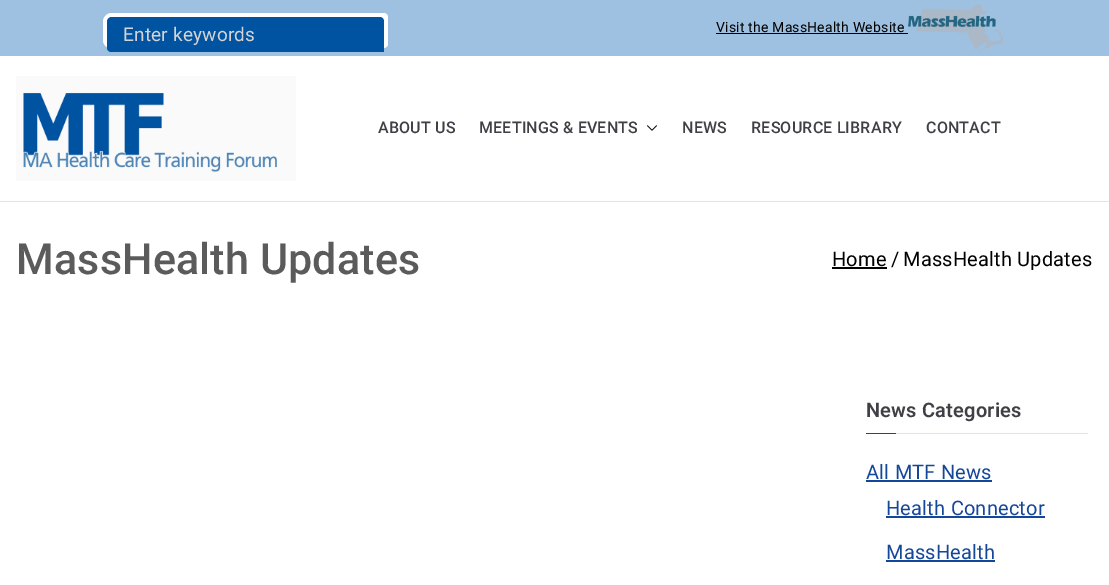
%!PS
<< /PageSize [1109 585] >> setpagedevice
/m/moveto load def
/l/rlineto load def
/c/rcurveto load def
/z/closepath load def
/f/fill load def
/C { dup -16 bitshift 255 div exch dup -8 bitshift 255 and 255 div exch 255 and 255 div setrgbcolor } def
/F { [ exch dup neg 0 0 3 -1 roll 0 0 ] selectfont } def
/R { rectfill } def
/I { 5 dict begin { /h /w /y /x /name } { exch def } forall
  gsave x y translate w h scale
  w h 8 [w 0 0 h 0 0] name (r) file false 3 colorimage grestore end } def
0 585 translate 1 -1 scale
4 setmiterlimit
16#E4E4E7 C
0 0 1109 585 R
16#9EC1E1 C
0 0 1109 56 R
16#FFFFFF C
112 13 m 272 0 l 2 0 4 2 4 4 c 0 27 l 0 2 -2 4 -4 4 c -273 0 l -4.5 0 -8 -3.5 -8 -8 c 0 -18 l 0 -5 4 -9 9 -9 c z f
16#0053A1 C
112 17 m 268 0 l 2 0 4 2 4 4 c 0 31 l -273 0 l -2 0 -4 -2 -4 -4 c 0 -26 l 0 -3 2 -5 5 -5 c z f
/Roboto-Regular 19 F
16#D4D4D8 C
123 41 m .2 0 (Enter keywords) ashow
/Roboto-Regular 14 F
16#000000 C
716 32 m .2 0 (Visit the MassHealth Website) ashow
716 33 192 1 R
(1.rgb) 908 4 95 48 I
16#FFFFFF C
0 56 1109 145 R
(2.rgb) 16 76 280 105 I
/Roboto-Medium 16 F
16#3F3F46 C
378 133 m .2 0 (ABOUT US) ashow
479 133 m .2 0 (MEETINGS & EVENTS) ashow
(3.rgb) 647 125 10 6 I
682 133 m .2 0 (NEWS) ashow
751 133 m .2 0 (RESOURCE LIBRARY) ashow
926 133 m .2 0 (CONTACT) ashow
16#FFFFFF C
0 202 1109 383 R
/Roboto-Medium 43 F
16#5B5B5B C
16 274 m .2 0 (MassHealth Updates) ashow
/Roboto-Regular 20 F
16#000000 C
832 266 m .2 0 (Home) ashow
832 267 55 2 R
891 266 m .2 0 (/) ashow
903 266 m .2 0 (MassHealth Updates) ashow
16#E4E4E7 C
896 433 192 1 R
/Roboto-SemiBold 20 F
16#3F3F46 C
866 417 m .2 0 (News Categories) ashow
16#154799 C
866 433 30 1 R
/Roboto-Regular 20 F
866 479 m .2 0 (All MTF News) ashow
866 480 126 2 R
886 515 m .2 0 (Health Connector) ashow
886 516 159 2 R
886 559 m .2 0 (MassHealth) ashow
886 560 109 2 R
showpage
